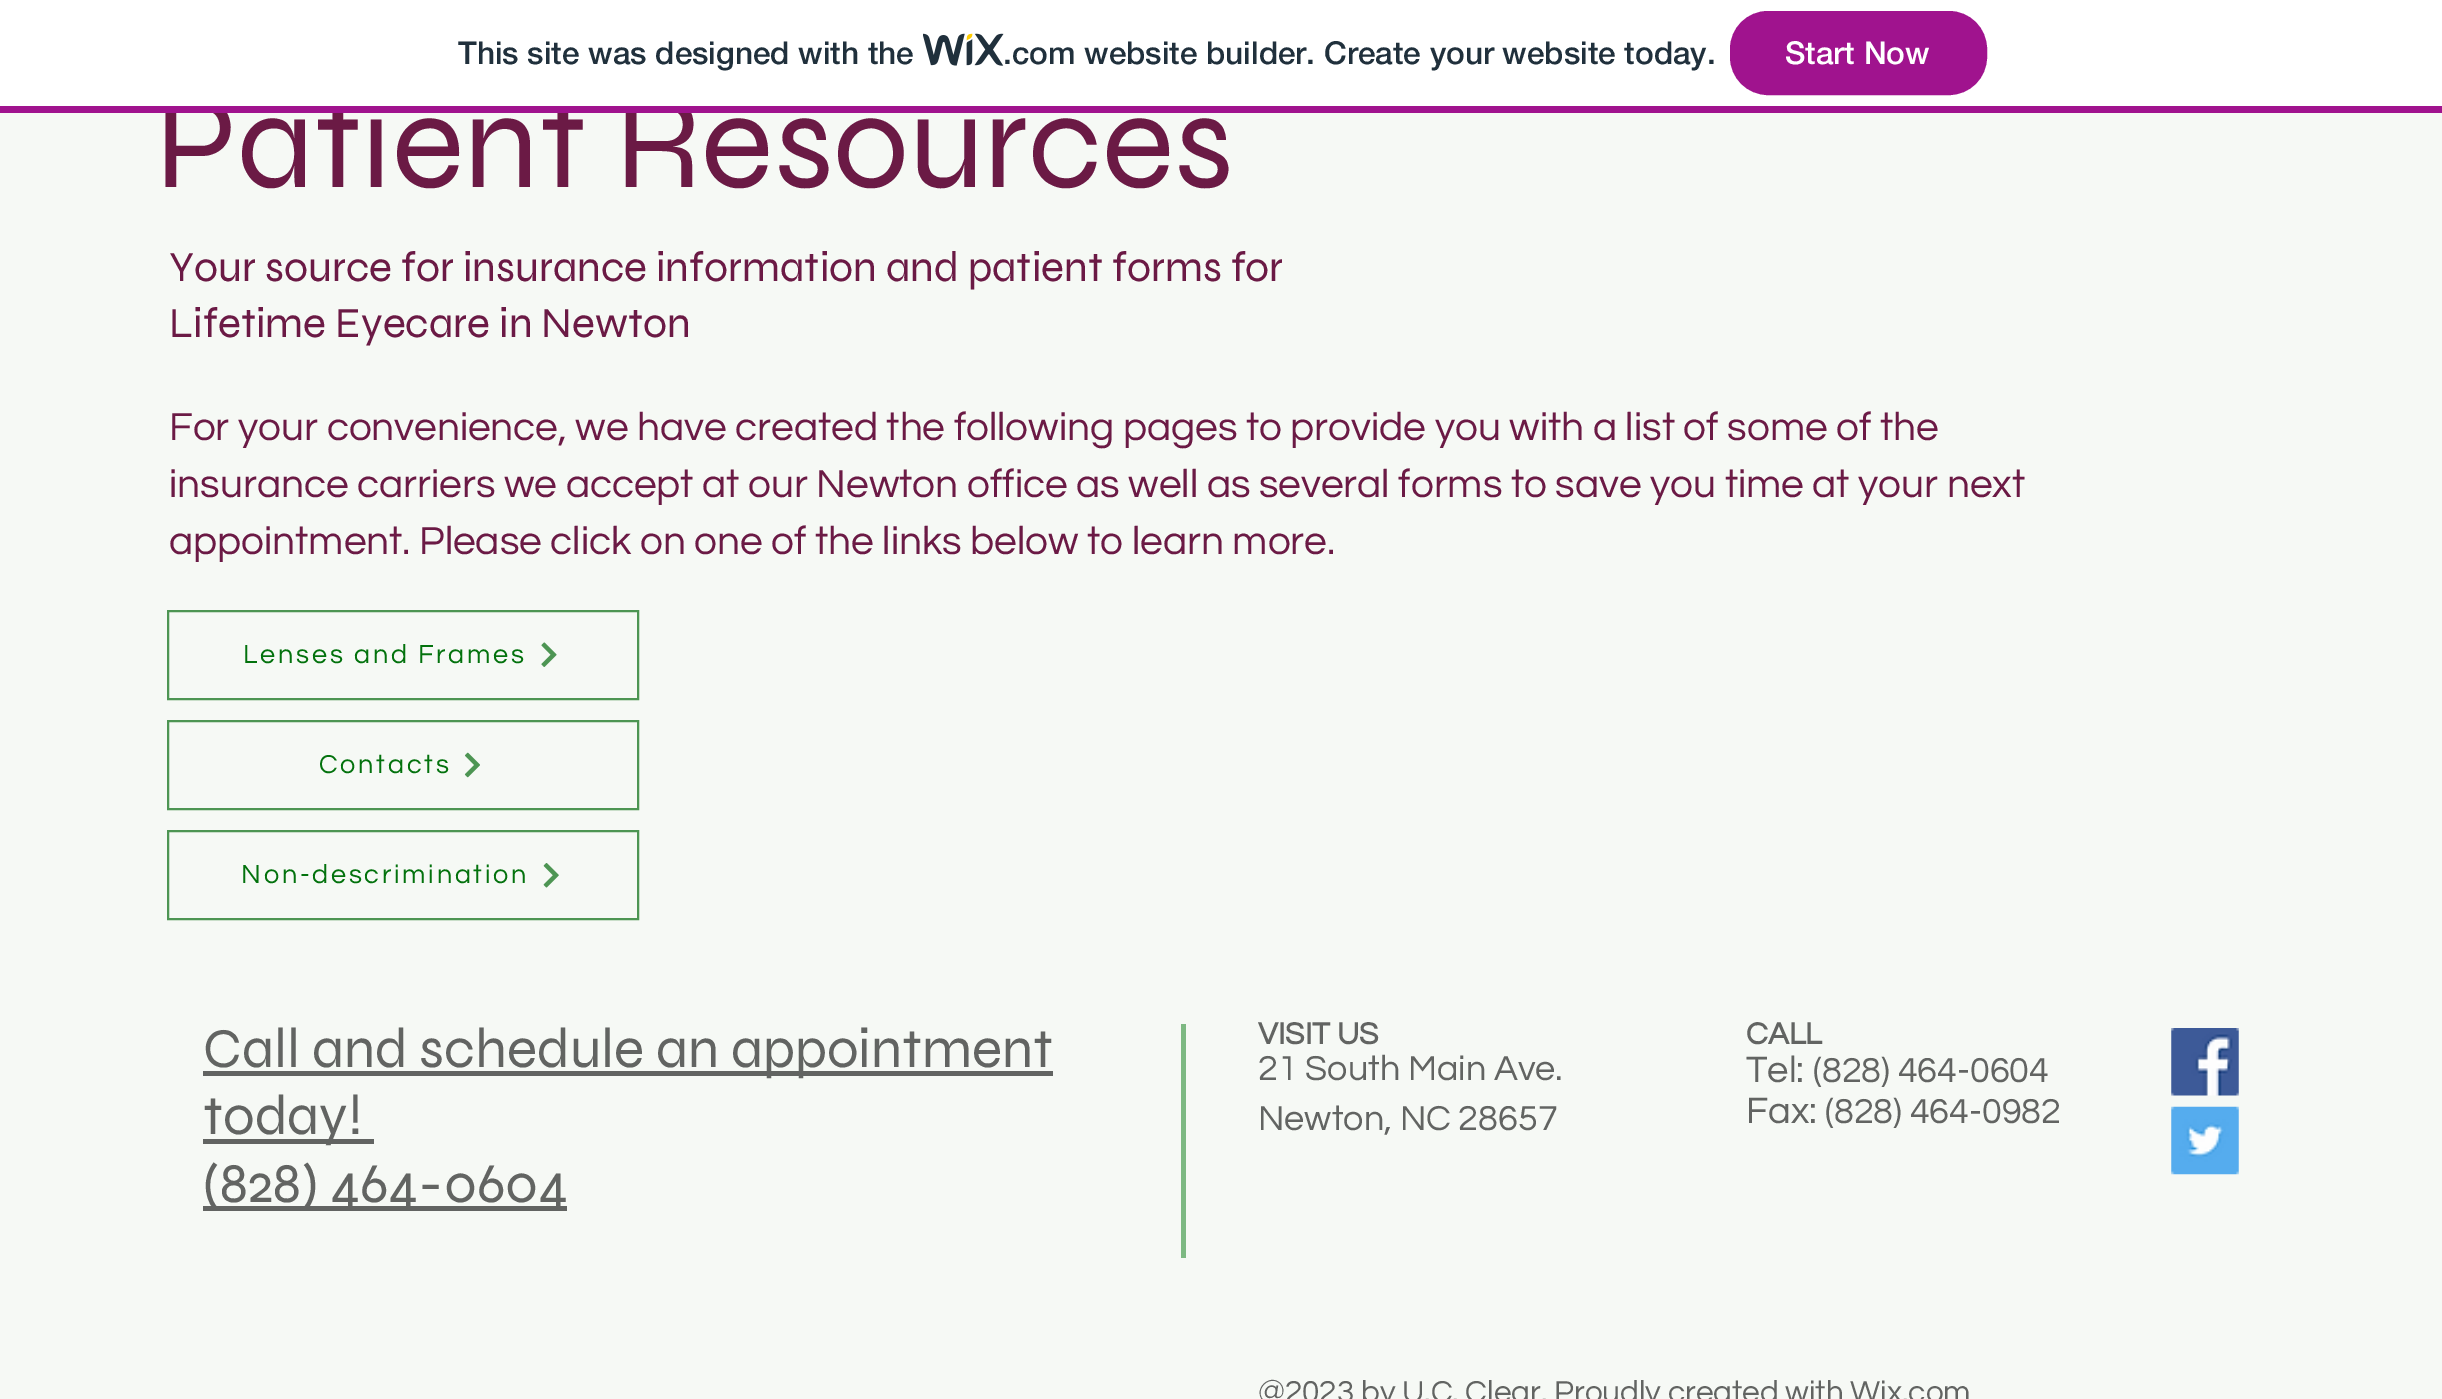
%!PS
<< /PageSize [2442 1399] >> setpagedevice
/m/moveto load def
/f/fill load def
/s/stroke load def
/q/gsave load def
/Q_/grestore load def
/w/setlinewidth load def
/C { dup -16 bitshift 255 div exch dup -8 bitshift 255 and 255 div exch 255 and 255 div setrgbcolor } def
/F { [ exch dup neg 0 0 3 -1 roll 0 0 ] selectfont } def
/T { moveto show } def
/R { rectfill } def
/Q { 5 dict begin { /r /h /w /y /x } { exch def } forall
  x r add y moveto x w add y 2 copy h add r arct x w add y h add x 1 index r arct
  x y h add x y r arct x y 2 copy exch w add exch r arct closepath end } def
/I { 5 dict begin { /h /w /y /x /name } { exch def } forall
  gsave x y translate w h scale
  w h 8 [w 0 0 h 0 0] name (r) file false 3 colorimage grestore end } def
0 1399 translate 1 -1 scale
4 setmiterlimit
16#F6F9F5 C
0 0 2442 1399 R
/Syne-Regular 135 F
16#6B1A45 C
(Patient Resources) 155 187 T
16#FFFFFF C
0 0 2442 106 R
16#A0138E C
0 106 2442 7 R
/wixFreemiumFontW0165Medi-Medium 31.5 F
16#20303C C
(This site was designed with the) 458 64 T
(1.rgb) 923 33 81 33 I
(.com website builder. Create your website today.) 1003 64 T
16#A0138E C
1731 12 255 82 37 Q q f Q_
2 w
s
16#FFFFFF C
(Start Now) 1785 64 T
/Syne-Regular 42.75 F
16#6B1A45 C
(Your source for insurance information and patient forms for) 169 281 T
(Lifetime Eyecare in Newton) 169 337 T
/Questrial-Regular 40.5 F
(For your convenience, we have created the following pages to provide you with a list of some of the) 169 440 T
(insurance carriers we accept at our Newton office as well as several forms to save you time at your next) 169 497 T
(appointment. Please click on one of the links below to learn more.) 169 554 T
16#4D9553 C
168 611 470 88 rectstroke
/Questrial-Regular 27 F
16#03720D C
243 663 m 2.75 0 (Lenses and Frames) ashow
(2.rgb) 541 642 16 25 I
16#4D9553 C
168 721 470 88 rectstroke
q
320 752 130 29 rectclip
16#03720D C
319 773 m 2.75 0 (Contacts) ashow
Q_
(3.rgb) 464 752 16 26 I
168 831 470 88 rectstroke
16#03720D C
241 883 m 2.75 0 (Non-descrimination) ashow
(4.rgb) 543 863 16 25 I
16#626462 C
203 1071 850 5 R
/Syne-Regular 56.25 F
(Call and schedule an appointment) 203 1067 T
203 1139 171 5 R
(today!) 203 1134 T
203 1206 364 5 R
(\(828\) 464-0604) 203 1202 T
16#7DB982 C
1181 1024 5 234 R
/Questrial-Bold 31.5 F
16#626462 C
(VISIT US) 1258 1044 T
/Questrial-Regular 36 F
(21 South Main Ave.) 1258 1080 T
(Newton, NC 28657) 1258 1130 T
/Questrial-Bold 31.5 F
(CALL) 1746 1044 T
/Questrial-Regular 38 F
(Tel:) 1746 1082 T
/Questrial-Regular 36 F
(\(828\) 464-0604) 1813 1082 T
/Questrial-Regular 38 F
(Fax:) 1746 1123 T
/Questrial-Regular 36 F
(\(828\) 464-0982) 1825 1123 T
(5.rgb) 2171 1028 68 68 I
(6.rgb) 2171 1106 68 69 I
/Questrial-Regular 31.5 F
(@2023 by U.C. Clear. Proudly created with Wix.com) 1258 1402 T
showpage
